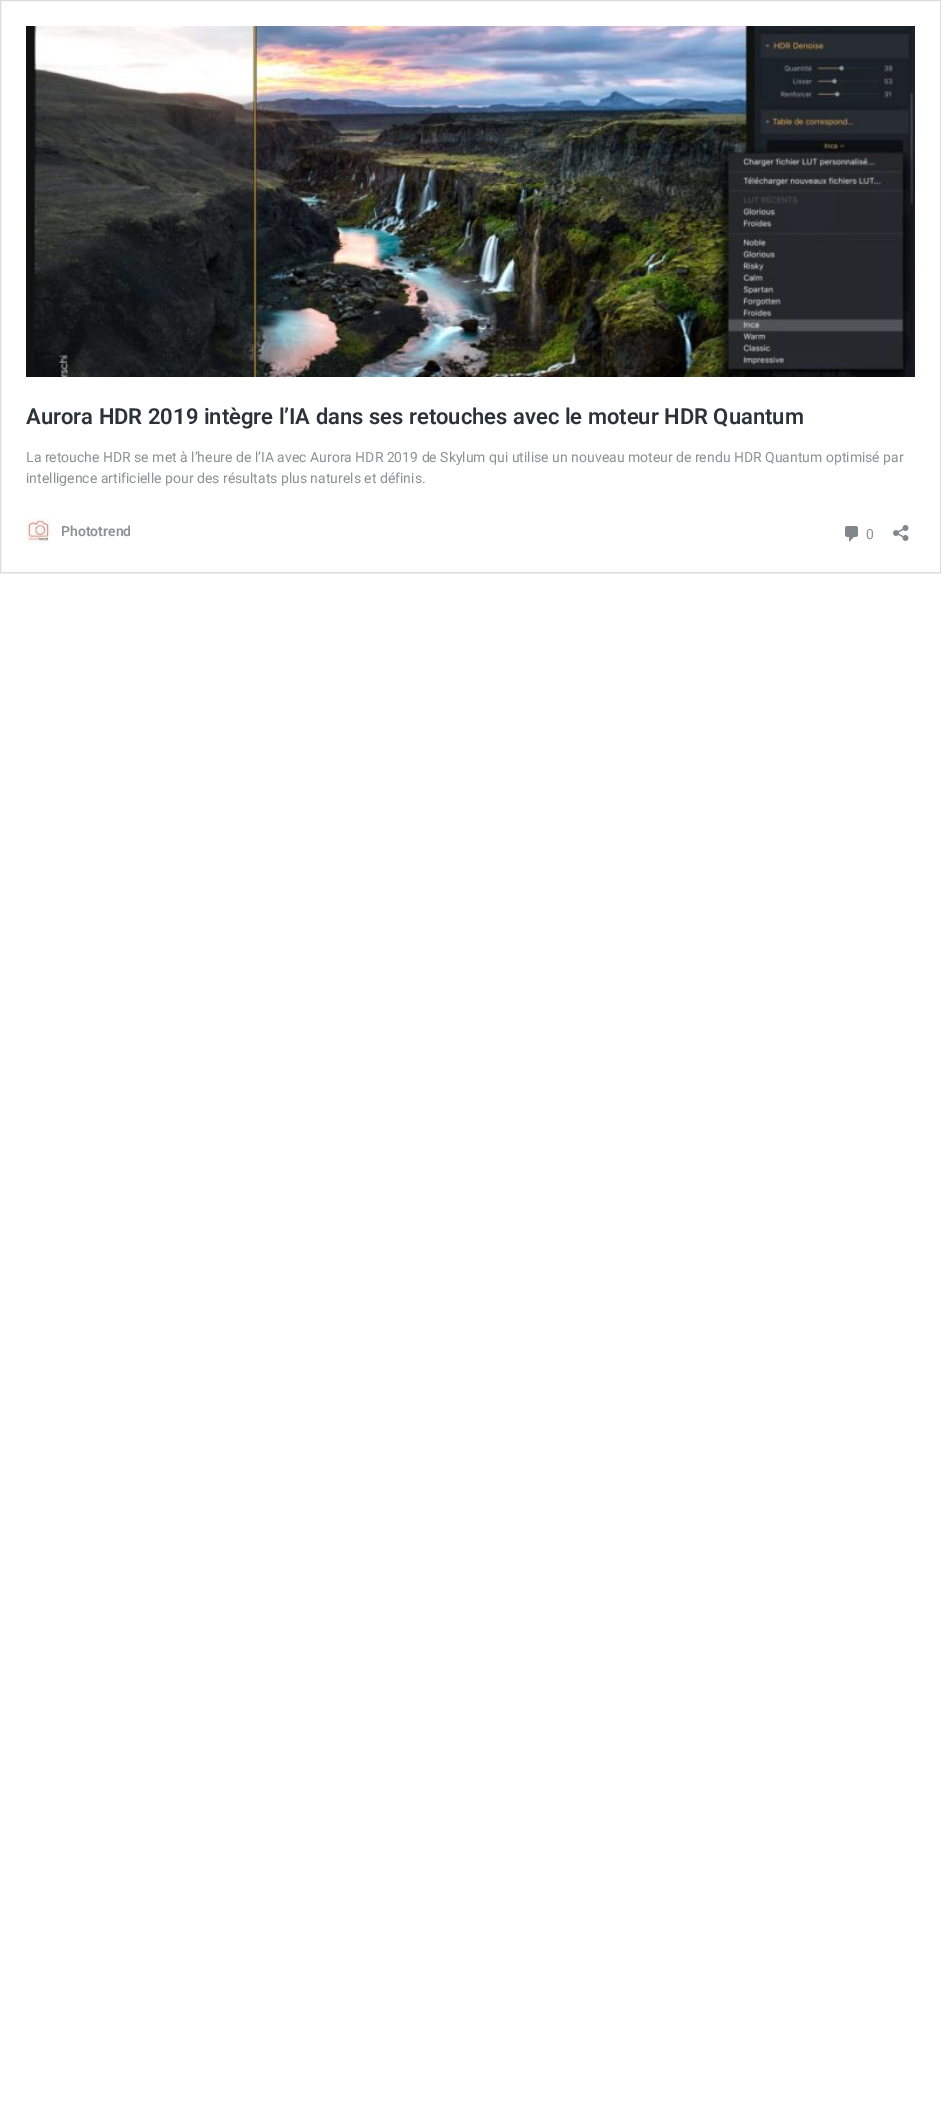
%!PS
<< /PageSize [941 2111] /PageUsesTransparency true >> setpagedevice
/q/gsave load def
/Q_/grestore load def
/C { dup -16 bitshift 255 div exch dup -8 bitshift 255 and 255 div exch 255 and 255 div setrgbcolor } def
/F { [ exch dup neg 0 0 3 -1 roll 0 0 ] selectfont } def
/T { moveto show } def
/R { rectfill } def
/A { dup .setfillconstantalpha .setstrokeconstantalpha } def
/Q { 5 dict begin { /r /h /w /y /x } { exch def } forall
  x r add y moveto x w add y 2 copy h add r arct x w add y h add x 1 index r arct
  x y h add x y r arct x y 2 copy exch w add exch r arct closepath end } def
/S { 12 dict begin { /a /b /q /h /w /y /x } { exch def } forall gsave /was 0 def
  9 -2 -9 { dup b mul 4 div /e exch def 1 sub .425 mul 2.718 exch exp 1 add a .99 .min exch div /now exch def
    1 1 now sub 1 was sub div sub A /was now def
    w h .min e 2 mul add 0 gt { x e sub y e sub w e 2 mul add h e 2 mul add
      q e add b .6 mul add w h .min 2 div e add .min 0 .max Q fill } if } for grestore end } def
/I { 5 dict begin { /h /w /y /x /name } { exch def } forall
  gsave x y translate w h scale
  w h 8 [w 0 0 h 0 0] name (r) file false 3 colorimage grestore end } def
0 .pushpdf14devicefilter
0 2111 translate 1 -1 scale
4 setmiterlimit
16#FFFFFF C
0 0 941 2111 R
q
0 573 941 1 rectclip
16#000000 C
0 1 941 573 0 .5 .05 S
Q_
16#DCDCDE C
.5 .5 940 572 rectstroke
(1.rgb) 26 26 889 351 I
/Roboto-SemiBold 22 F
16#2C3338 C
(Aurora HDR 2019 intègre l’IA dans ses retouches avec le moteur HDR Quantum) 26 424 T
/Roboto-Regular 14 F
16#8C8F94 C
(La retouche HDR se met à l’heure de l’IA avec Aurora HDR 2019 de Skylum qui utilise un nouveau moteur de rendu HDR Quantum optimisé par) 26 462 T
(intelligence artificielle pour des résultats plus naturels et définis.) 26 483 T
(2.rgb) 26 518 25 26 I
/Roboto-SemiBold 14 F
(Phototrend) 61 536 T
(3.rgb) 845 526 13 16 I
/Roboto-Regular 14 F
(0) 866 539 T
(4.rgb) 893 525 16 16 I
.poppdf14devicefilter showpage
